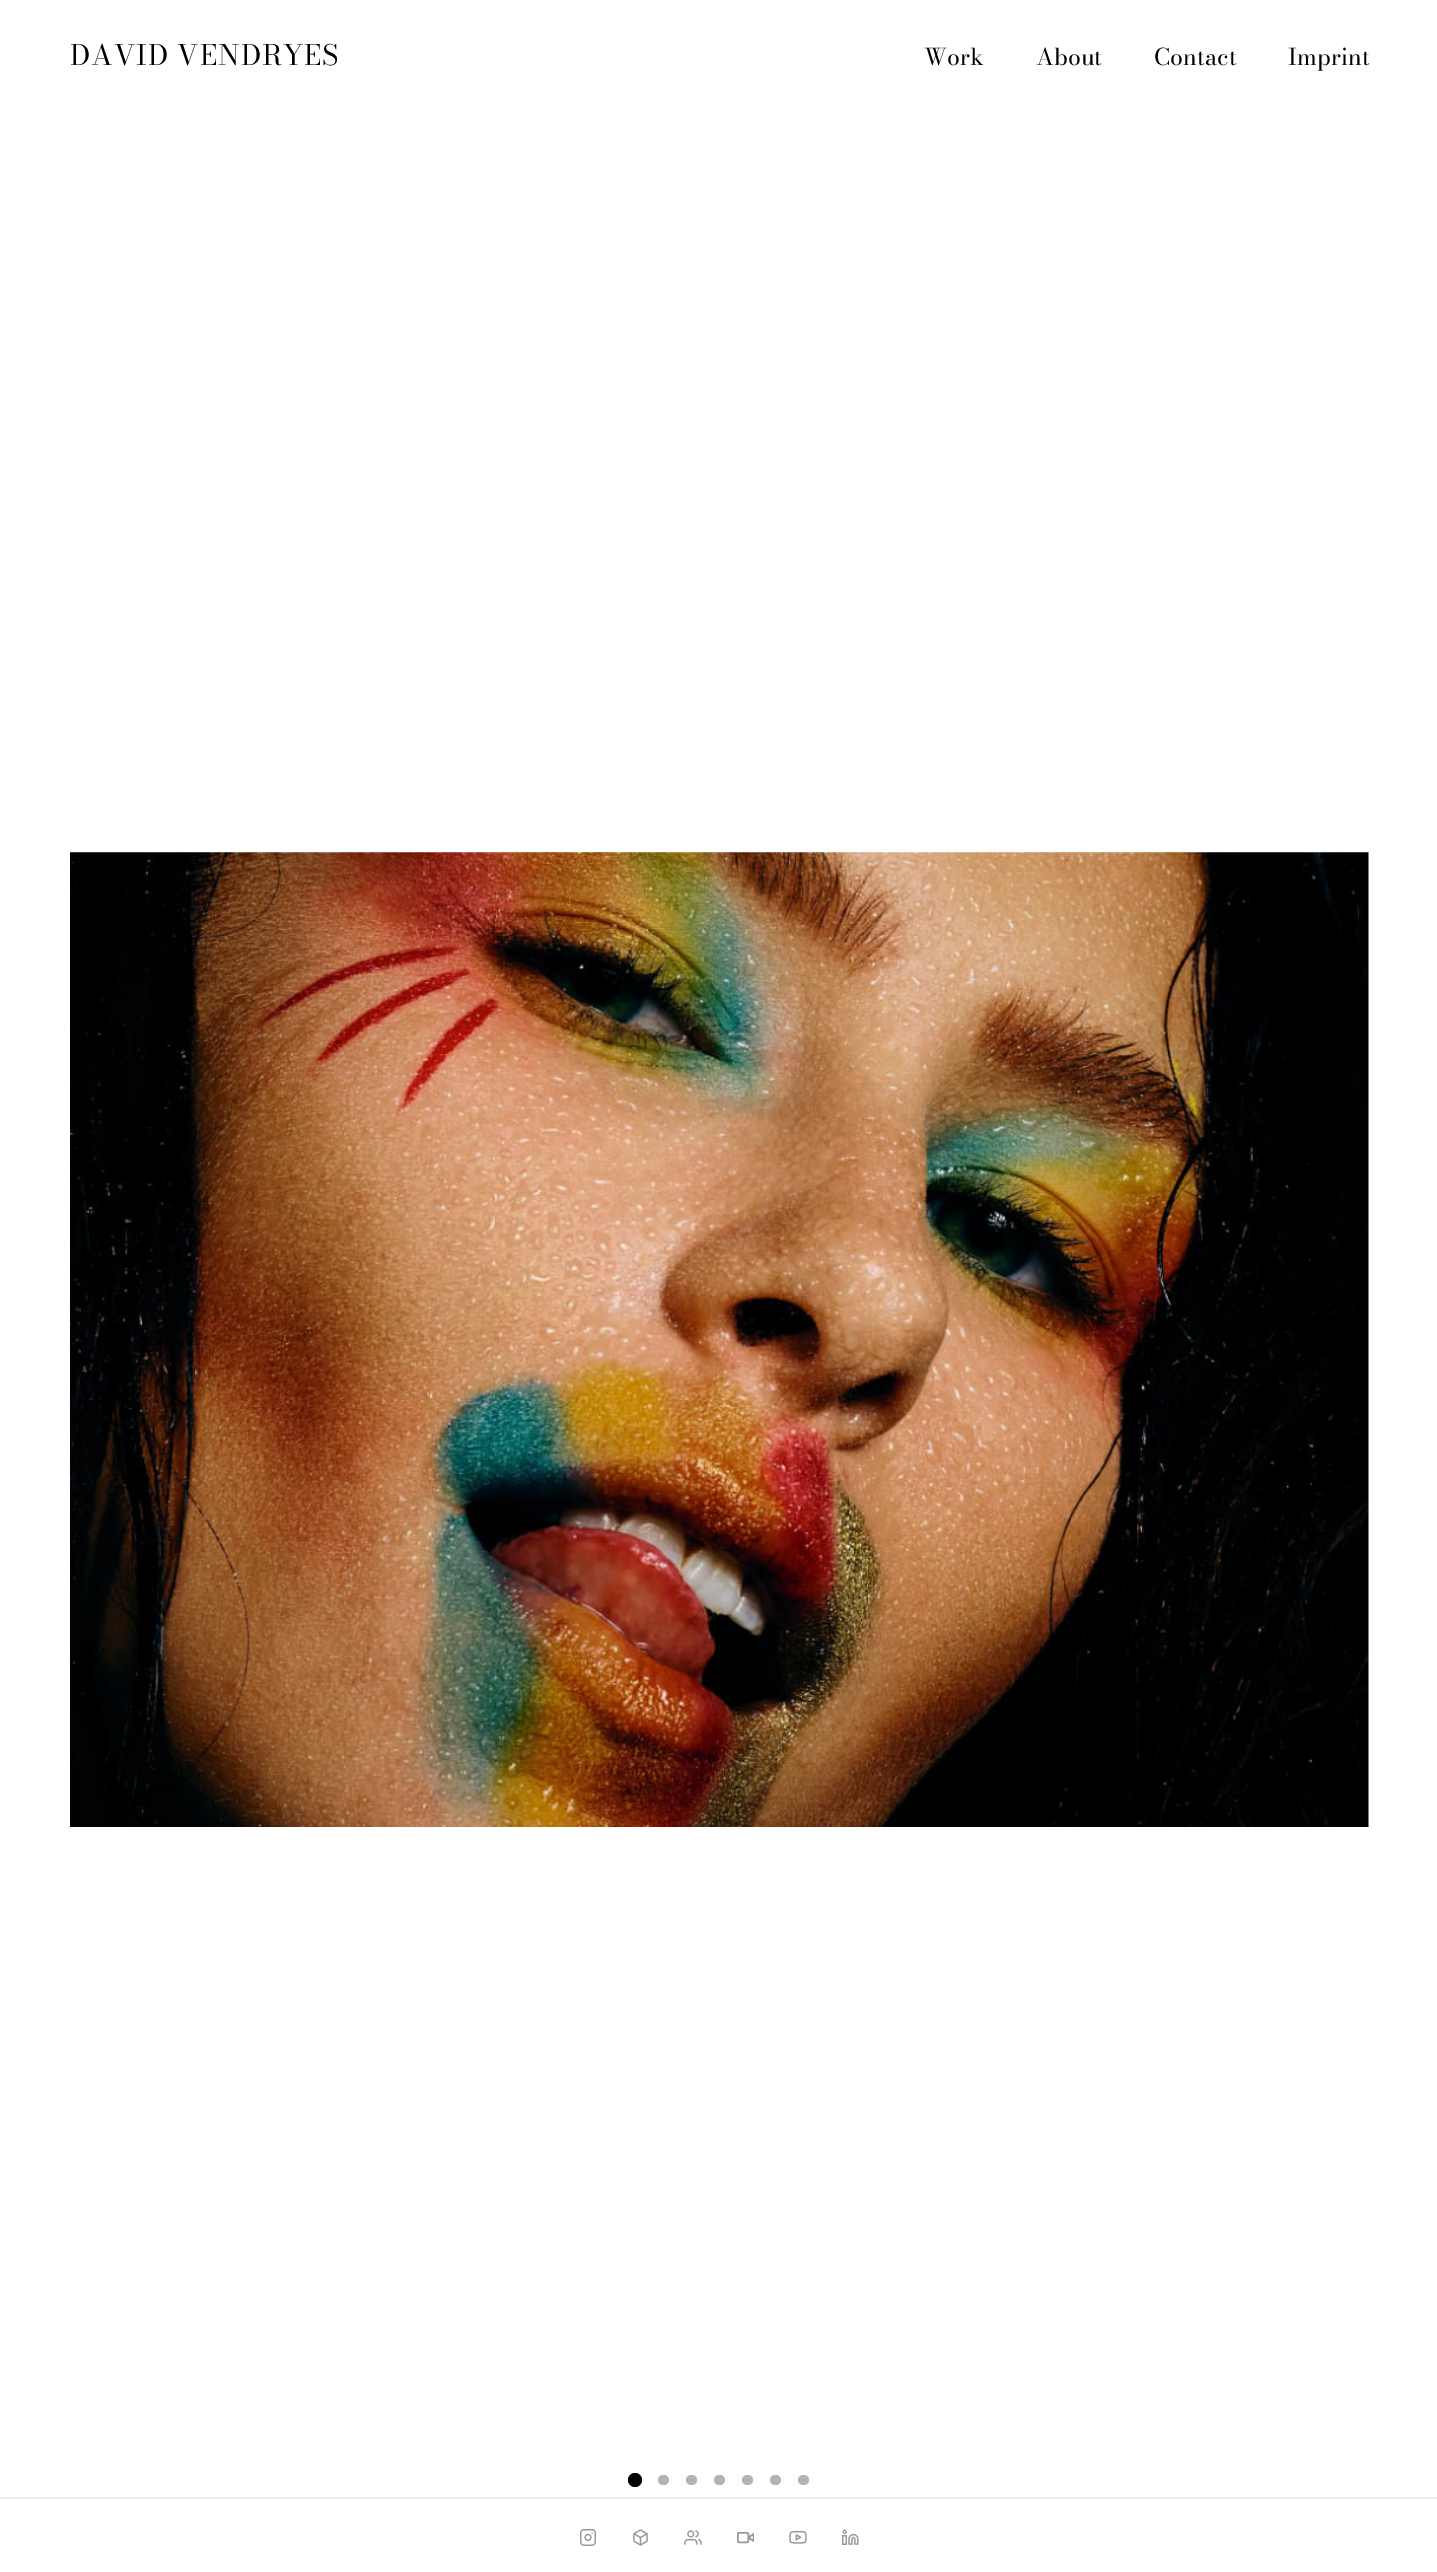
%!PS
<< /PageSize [1437 2572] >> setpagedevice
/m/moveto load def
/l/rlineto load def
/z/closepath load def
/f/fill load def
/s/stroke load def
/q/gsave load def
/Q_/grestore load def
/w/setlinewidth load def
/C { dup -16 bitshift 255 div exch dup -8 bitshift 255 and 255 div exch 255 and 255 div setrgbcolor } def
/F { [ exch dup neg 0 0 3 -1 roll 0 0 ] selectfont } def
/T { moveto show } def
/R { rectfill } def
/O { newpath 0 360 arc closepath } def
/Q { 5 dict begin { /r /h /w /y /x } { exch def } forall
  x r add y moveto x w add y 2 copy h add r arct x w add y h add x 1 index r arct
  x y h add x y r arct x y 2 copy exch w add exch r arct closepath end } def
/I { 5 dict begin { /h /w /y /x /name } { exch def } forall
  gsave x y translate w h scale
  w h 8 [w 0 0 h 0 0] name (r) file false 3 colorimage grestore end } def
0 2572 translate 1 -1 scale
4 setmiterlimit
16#FFFFFF C
0 0 1437 2572 R
/BodoniModa-Regular 28 F
16#000000 C
70 65 m .9 0 (DAVID VENDRYES) ashow
/BodoniModa-Regular 23 F
(Work) 924 65 T
(About) 1036 65 T
(Contact) 1154 65 T
(Imprint) 1288 65 T
(1.rgb) 70 852 1299 975 I
635 2480 7 O f
16#B3B3B3 C
658 2475 11 10 5 Q f
686 2475 11 10 5 Q f
714 2475 11 10 5 Q f
742 2475 11 10 5 Q f
770 2475 11 10 5 Q f
798 2475 11 10 5 Q f
16#EEEEEE C
0 2497 1437 2 R
(2.rgb) 580 2529 16 17 I
(3.rgb) 633 2529 15 17 I
(4.rgb) 684 2530 18 15 I
q
737 2529 17 17 rectclip
16#999999 C
1.5 w
1 setlinecap
1 setlinejoin
753.5 2534 m -5 3.5 l 5 3.5 l z s
Q_
16#999999 C
1.5 w
737.75 2532.75 10.5 9.5 1.25 Q s
(5.rgb) 789 2530 18 14 I
(6.rgb) 842 2529 17 16 I
showpage
